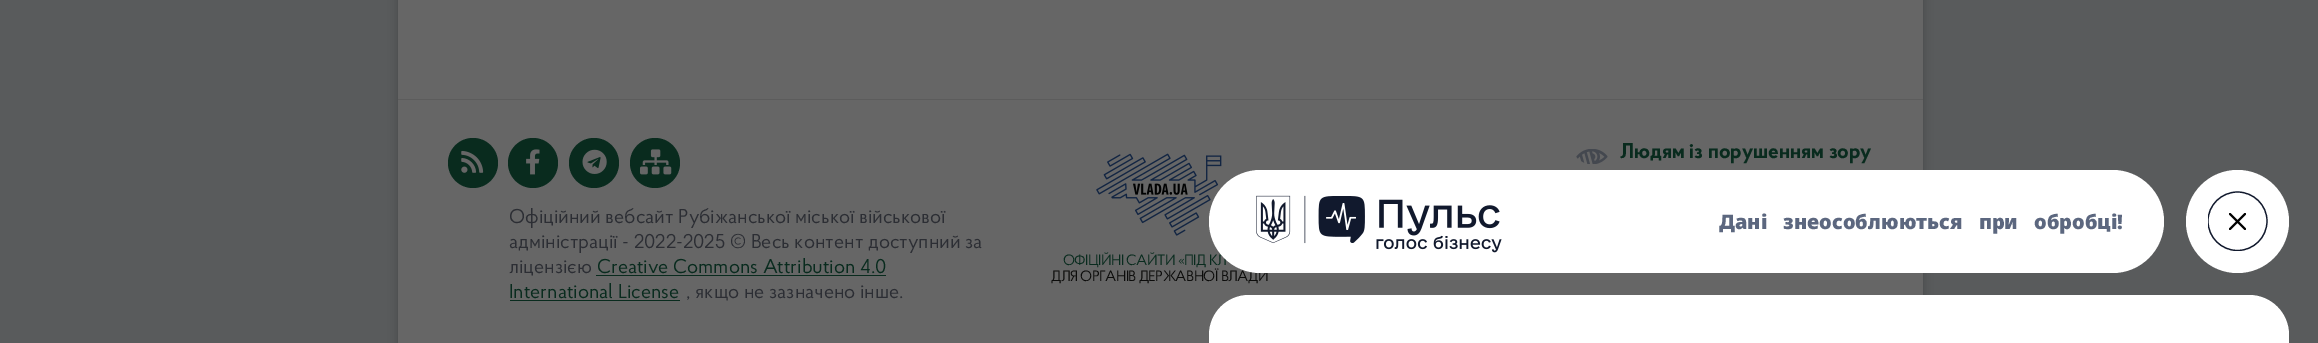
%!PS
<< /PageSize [2318 343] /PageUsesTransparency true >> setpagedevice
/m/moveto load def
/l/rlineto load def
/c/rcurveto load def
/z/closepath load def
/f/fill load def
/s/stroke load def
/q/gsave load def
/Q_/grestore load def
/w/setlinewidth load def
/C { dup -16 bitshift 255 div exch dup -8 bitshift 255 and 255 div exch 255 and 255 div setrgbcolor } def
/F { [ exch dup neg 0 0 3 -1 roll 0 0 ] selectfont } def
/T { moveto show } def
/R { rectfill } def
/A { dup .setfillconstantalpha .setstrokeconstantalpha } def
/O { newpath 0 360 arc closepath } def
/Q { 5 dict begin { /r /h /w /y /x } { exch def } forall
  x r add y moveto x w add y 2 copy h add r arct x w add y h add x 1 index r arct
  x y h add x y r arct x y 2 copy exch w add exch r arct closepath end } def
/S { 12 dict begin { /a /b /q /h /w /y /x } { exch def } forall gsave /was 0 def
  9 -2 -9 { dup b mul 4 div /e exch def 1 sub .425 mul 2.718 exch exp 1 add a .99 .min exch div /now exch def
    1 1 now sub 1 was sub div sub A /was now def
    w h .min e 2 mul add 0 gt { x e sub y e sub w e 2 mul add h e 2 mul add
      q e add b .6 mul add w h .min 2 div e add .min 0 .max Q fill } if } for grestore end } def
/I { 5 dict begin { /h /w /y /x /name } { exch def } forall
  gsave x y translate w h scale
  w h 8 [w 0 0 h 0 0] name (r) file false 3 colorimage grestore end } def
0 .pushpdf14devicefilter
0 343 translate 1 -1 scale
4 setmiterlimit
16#595B5C C
0 0 2318 343 R
16#000000 C
398 -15 1525 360 0 5 .2 S
16#666666 C
398 0 1525 343 R
16#5C5C5C C
398 99 1525 1 R
(1.rgb) 1576 149 32 15 I
/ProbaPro-Bold 21.25 F
16#092B1E C
(Людям із порушенням зору) 1620 158 T
473 163 25 O f
(2.rgb) 461 150 23 23 I
533 163 25 O f
(3.rgb) 526 149 14 26 I
594 163 25 O f
(4.rgb) 582 149 25 25 I
655 163 25 O f
(5.rgb) 640 149 32 26 I
/ProbaPro-Regular 20 F
16#2C2E34 C
(Офіційний вебсайт Рубіжанської міської військової) 509 223 T
(адміністрації - 2022-2025 © Весь контент доступний за) 509 248 T
(ліцензією) 509 273 T
16#092B1E C
(Creative Commons Attribution 4.0) 597 273 T
596 275 290 1 R
(International License) 509 298 T
510 300 170 1 R
16#2C2E34 C
(, якщо не зазначено інше.) 686 298 T
(6.rgb) 1096 153 126 83 I
/ProbaPro-Regular 15 F
16#092B1E C
1063 265 m -.6 0 (ОФІЦІЙНІ САЙТИ «ПІД КЛ) ashow
16#0C0C0B C
1051 281 m -.6 0 (ДЛЯ ОРГАНІВ ДЕРЖАВНОЇ ВЛАДИ) ashow
16#FFFFFF C
1209 170 955 103 51.5 Q f
(7.rgb) 1256 195 246 58 I
/NotoSans-Black 20 F
16#5C677F C
1719 229 m 11 0 32 (Дані знеособлюються при обробці!) widthshow
16#FFFFFF C
2237.5 221.5 51.5 O f
q
2208 191 60 60 rectclip
16#11192D C
1.2 w
2237.5 192 m 16 0 29.5 13 29.5 29 c 0 16.5 -13.5 29.5 -29.5 29.5 c -16 0 -29.5 -13 -29.5 -29.5 c 0 -16 13.5 -29 29.5 -29 c z s
Q_
16#000000 C
1.9 w
1 setlinecap
1 setlinejoin
2245 214 m -15 15 l 2230 214 m 15 15 l s
16#FFFFFF C
1209 295 1080 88 40 Q f
.poppdf14devicefilter showpage
